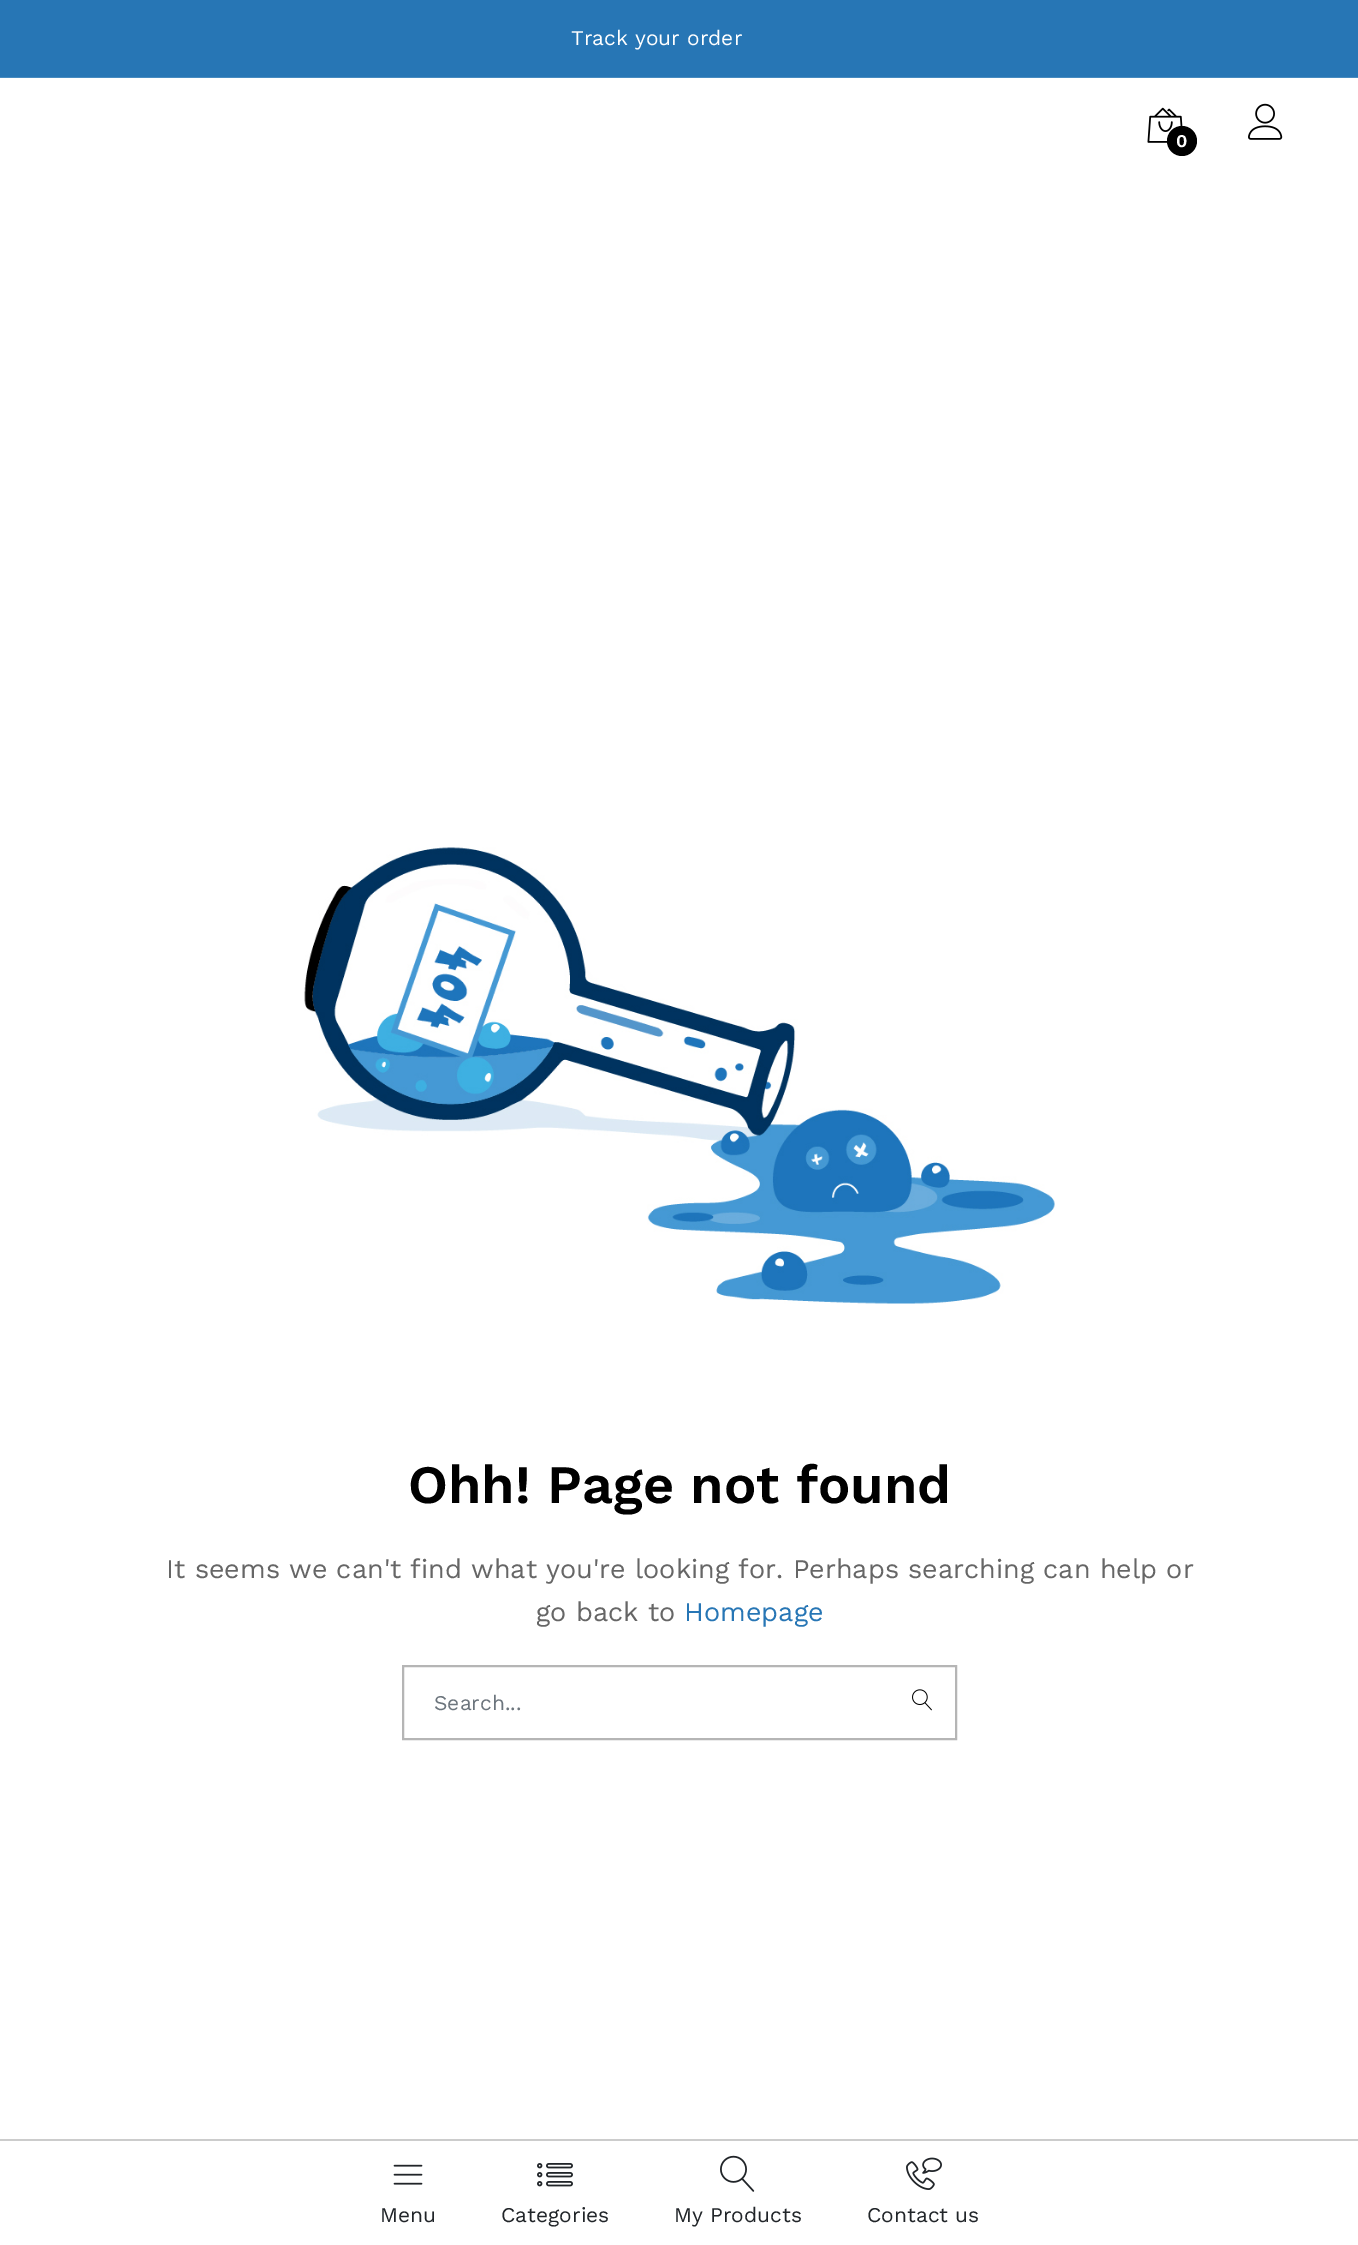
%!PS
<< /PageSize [1358 2245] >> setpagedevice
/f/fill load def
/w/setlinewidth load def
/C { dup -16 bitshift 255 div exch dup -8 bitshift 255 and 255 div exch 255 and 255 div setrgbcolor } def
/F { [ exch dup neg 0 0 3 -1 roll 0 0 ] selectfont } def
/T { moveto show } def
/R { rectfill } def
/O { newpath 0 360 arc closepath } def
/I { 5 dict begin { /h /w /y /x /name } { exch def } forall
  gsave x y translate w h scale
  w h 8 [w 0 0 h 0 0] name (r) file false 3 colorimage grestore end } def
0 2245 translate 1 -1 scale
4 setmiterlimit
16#FFFFFF C
0 0 1358 2245 R
16#2776B5 C
0 0 1358 77 R
16#478BC0 C
0 77 1358 1 R
/WorkSans-Regular 21 F
16#FFFFFF C
(Track your order) 571 45 T
(1.rgb) 1147 107 36 36 I
16#000000 C
1182 141 15 O f
/WorkSans-SemiBold 18 F
16#FFFFFF C
(0) 1176 147 T
(2.rgb) 1248 103 35 37 I
(3.rgb) 304 847 751 457 I
/WorkSans-SemiBold 54 F
16#000000 C
(Ohh! Page not found) 408 1503 T
/WorkSans-Regular 27 F
16#666666 C
(It seems we can't find what you're looking for. Perhaps searching can help or) 166 1578 T
(go back to) 536 1621 T
16#2776B5 C
(Homepage) 684 1621 T
16#B5B5B5 C
2 w
403 1666 553 73 rectstroke
/WorkSans-Regular 21 F
16#6C757D C
(Search...) 434 1710 T
(4.rgb) 912 1689 20 22 I
16#CCCCCC C
0 2139 1358 2 R
(5.rgb) 393 2164 30 21 I
16#212529 C
(Menu) 380 2222 T
(6.rgb) 537 2163 36 24 I
(Categories) 501 2222 T
(7.rgb) 720 2155 35 37 I
(My Products) 674 2222 T
(8.rgb) 906 2157 36 33 I
(Contact us) 867 2222 T
showpage
